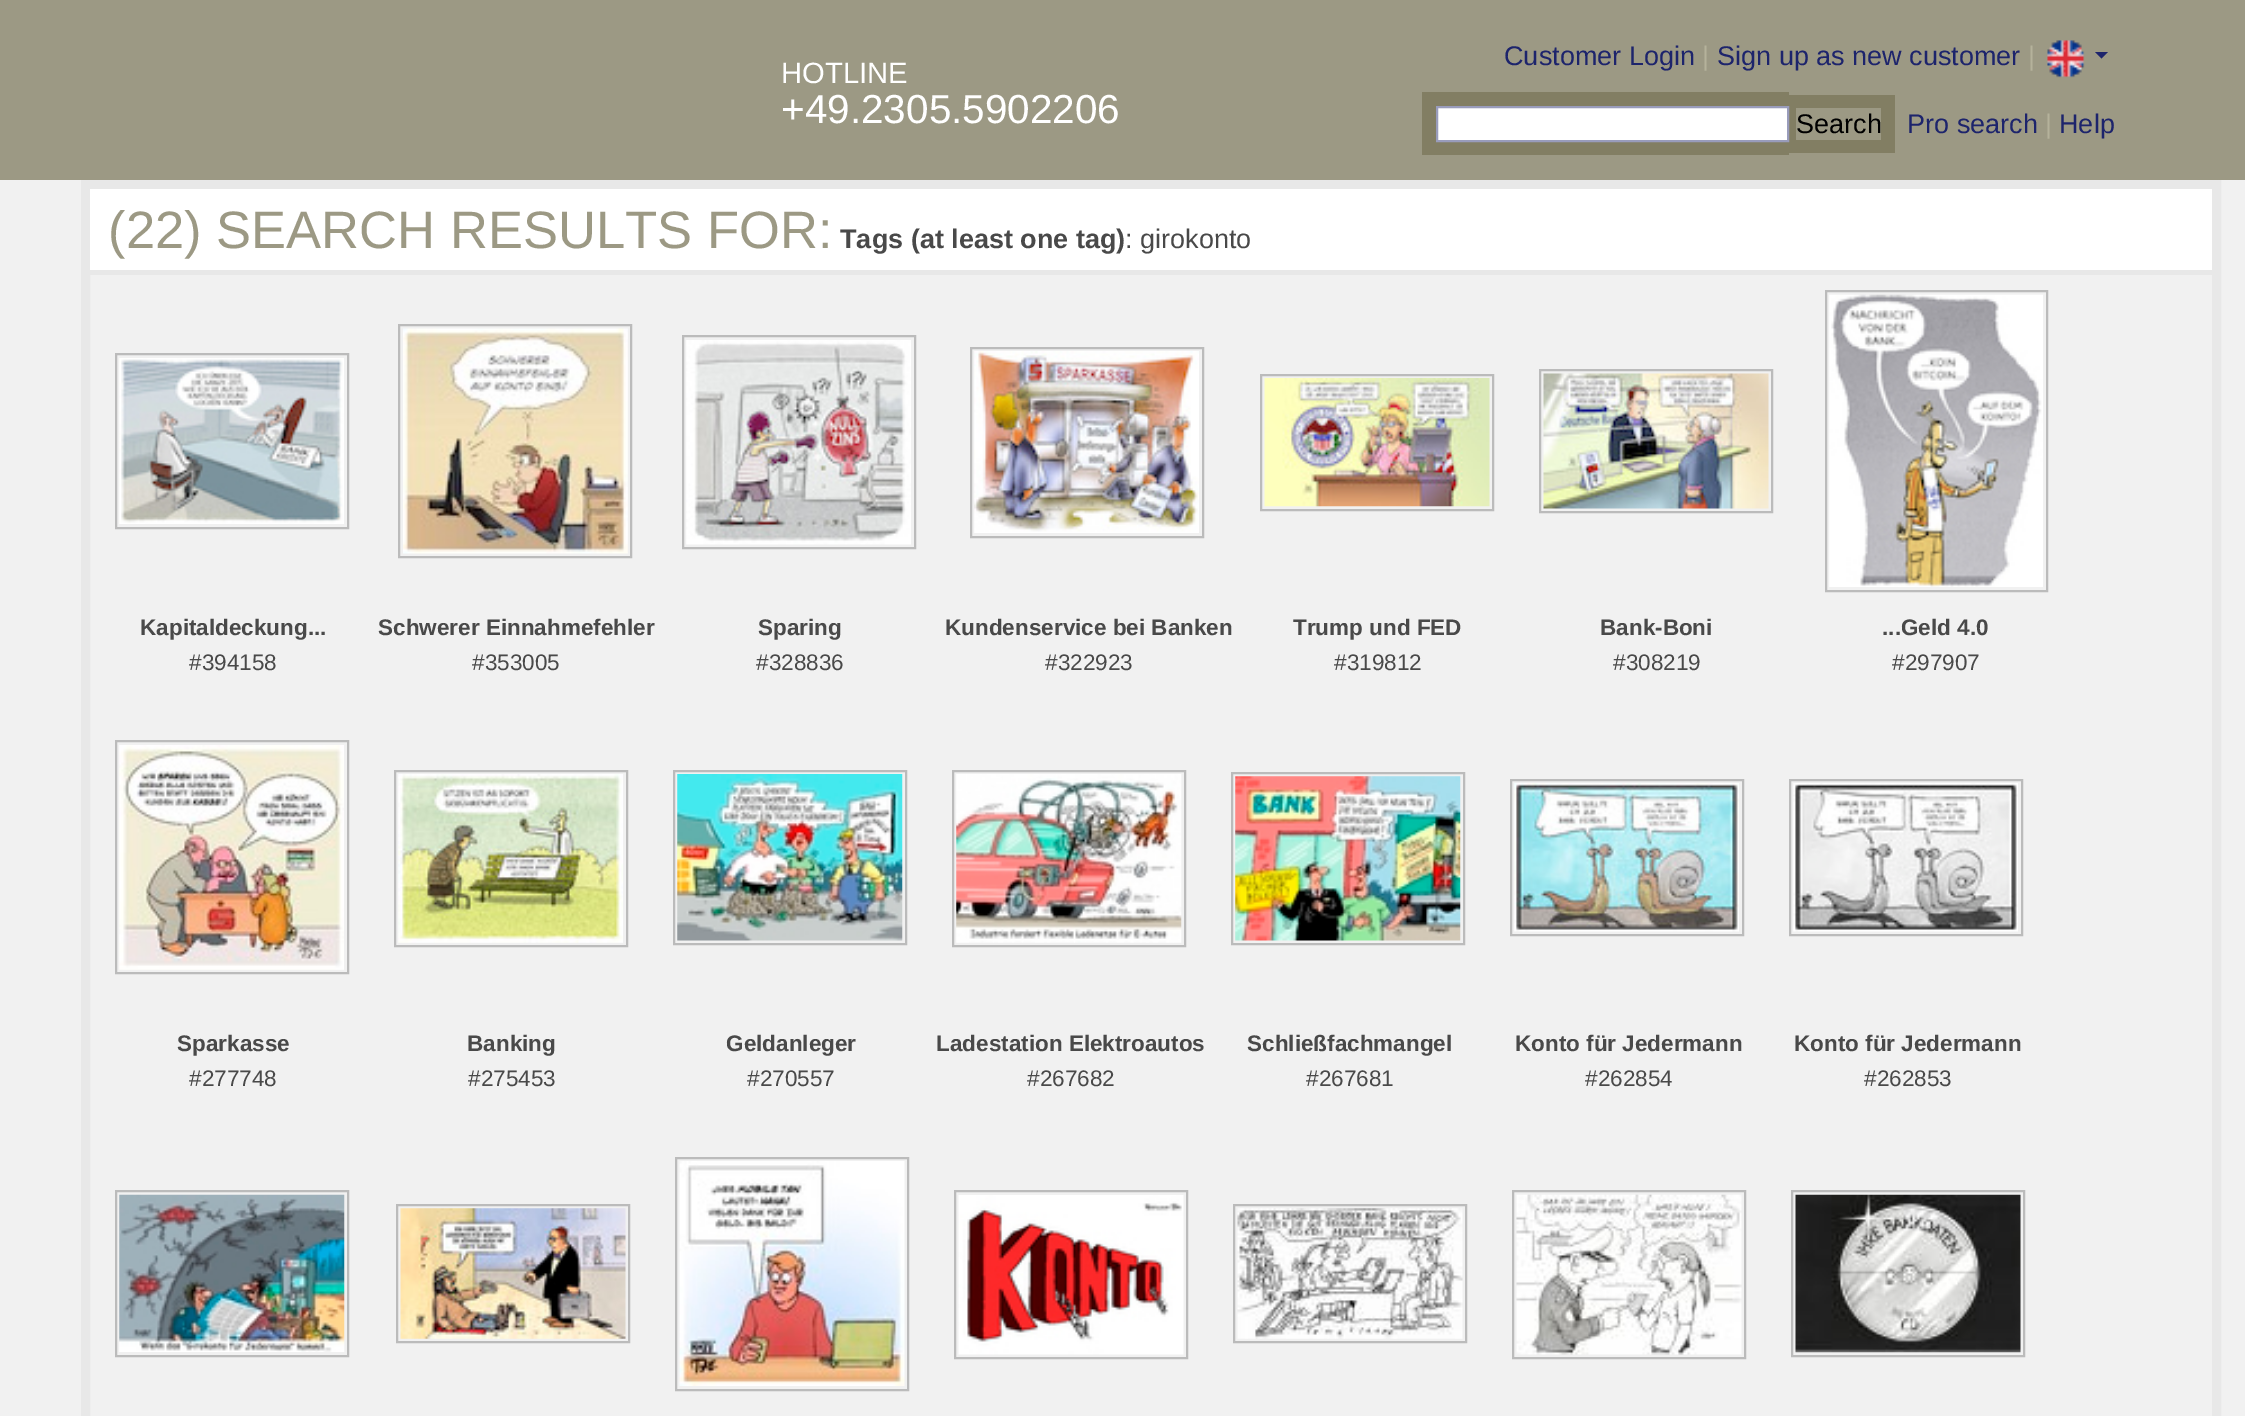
%!PS
<< /PageSize [2245 1416] >> setpagedevice
/m/moveto load def
/l/rlineto load def
/z/closepath load def
/f/fill load def
/s/stroke load def
/q/gsave load def
/Q_/grestore load def
/w/setlinewidth load def
/C { dup -16 bitshift 255 div exch dup -8 bitshift 255 and 255 div exch 255 and 255 div setrgbcolor } def
/F { [ exch dup neg 0 0 3 -1 roll 0 0 ] selectfont } def
/T { moveto show } def
/R { rectfill } def
/I { 5 dict begin { /h /w /y /x /name } { exch def } forall
  gsave x y translate w h scale
  w h 8 [w 0 0 h 0 0] name (r) file false 3 colorimage grestore end } def
0 1416 translate 1 -1 scale
4 setmiterlimit
16#F1F1F1 C
0 0 2245 1416 R
16#9C9984 C
0 0 2245 180 R
/LiberationSans-Regular 27 F
16#1D246C C
(Customer Login) 1504 65 T
16#B5B29B C
(|) 1702 65 T
16#1D246C C
(Sign up as new customer) 1717 65 T
16#B5B29B C
(|) 2028 65 T
(1.rgb) 2047 40 38 38 I
16#1D246C C
2095 52 m 13 0 l -6.5 6.5 l z f
/LiberationSans-Regular 29.25 F
16#FFFFFF C
(HOTLINE) 781 83 T
/LiberationSans-Regular 40.5 F
(+49.2305.5902206) 781 123 T
16#827E63 C
1422 92 367 63 R
1789 95 106 58 R
16#FFFFFF C
1437 107 m 351 0 l 0 34 l -351 0 l z q f Q_
16#999CBB C
2 w
s
16#9C9984 C
1796 108 85 32 R
/LiberationSans-Regular 27 F
16#000000 C
(Search) 1796 133 T
16#1D246C C
(Pro search) 1907 133 T
16#B5B29B C
(|) 2045 133 T
16#1D246C C
(Help) 2059 133 T
16#E8E8E8 C
9 w
85.5 184.5 2131 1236 rectstroke
16#FFFFFF C
90 189 2122 81 R
/LiberationSans-Regular 52.6 F
16#9C9984 C
(\(22\) SEARCH RESULTS FOR:) 108 248 T
/LiberationSans-Bold 27 F
16#494949 C
(Tags \(at least one tag\)) 840 248 T
/LiberationSans-Regular 27 F
(: girokonto) 1125 248 T
16#E8E8E8 C
90 270 2122 5 R
16#BBBBBB C
2 w
116 354 232 174 rectstroke
(2.rgb) 119 358 225 166 I
/LiberationSans-Bold 22.5 F
16#494949 C
(Kapitaldeckung...) 140 635 T
/LiberationSans-Regular 22.5 F
(#394158) 189 670 T
16#BBBBBB C
399 325 232 232 rectstroke
(3.rgb) 403 328 225 226 I
/LiberationSans-Bold 22.5 F
16#494949 C
(Schwerer Einnahmefehler) 378 635 T
/LiberationSans-Regular 22.5 F
(#353005) 472 670 T
16#BBBBBB C
683 336 232 212 rectstroke
(4.rgb) 686 340 225 205 I
/LiberationSans-Bold 22.5 F
16#494949 C
(Sparing) 758 635 T
/LiberationSans-Regular 22.5 F
(#328836) 756 670 T
16#BBBBBB C
971 348 232 189 rectstroke
(5.rgb) 974 351 225 182 I
/LiberationSans-Bold 22.5 F
16#494949 C
(Kundenservice bei Banken) 945 635 T
/LiberationSans-Regular 22.5 F
(#322923) 1045 670 T
16#BBBBBB C
1261 375 232 135 rectstroke
(6.rgb) 1264 378 226 129 I
/LiberationSans-Bold 22.5 F
16#494949 C
(Trump und FED) 1293 635 T
/LiberationSans-Regular 22.5 F
(#319812) 1334 670 T
16#BBBBBB C
1540 370 232 142 rectstroke
(7.rgb) 1543 373 226 136 I
/LiberationSans-Bold 22.5 F
16#494949 C
(Bank-Boni) 1600 635 T
/LiberationSans-Regular 22.5 F
(#308219) 1613 670 T
16#BBBBBB C
1826 291 221 300 rectstroke
(8.rgb) 1829 294 214 293 I
/LiberationSans-Bold 22.5 F
16#494949 C
(...Geld 4.0) 1882 635 T
/LiberationSans-Regular 22.5 F
(#297907) 1892 670 T
16#BBBBBB C
116 741 232 232 rectstroke
(9.rgb) 119 745 225 225 I
/LiberationSans-Bold 22.5 F
16#494949 C
(Sparkasse) 177 1051 T
/LiberationSans-Regular 22.5 F
(#277748) 189 1086 T
16#BBBBBB C
395 771 232 175 rectstroke
(10.rgb) 398 774 225 169 I
/LiberationSans-Bold 22.5 F
16#494949 C
(Banking) 467 1051 T
/LiberationSans-Regular 22.5 F
(#275453) 468 1086 T
16#BBBBBB C
674 771 232 173 rectstroke
(11.rgb) 677 774 226 167 I
/LiberationSans-Bold 22.5 F
16#494949 C
(Geldanleger) 726 1051 T
/LiberationSans-Regular 22.5 F
(#270557) 747 1086 T
16#BBBBBB C
953 771 232 175 rectstroke
(12.rgb) 956 774 226 169 I
/LiberationSans-Bold 22.5 F
16#494949 C
(Ladestation Elektroautos) 936 1051 T
/LiberationSans-Regular 22.5 F
(#267682) 1027 1086 T
16#BBBBBB C
1232 773 232 171 rectstroke
(13.rgb) 1235 776 226 165 I
/LiberationSans-Bold 22.5 F
16#494949 C
(Schließfachmangel) 1247 1051 T
/LiberationSans-Regular 22.5 F
(#267681) 1306 1086 T
16#BBBBBB C
1511 780 232 155 rectstroke
(14.rgb) 1514 783 225 149 I
/LiberationSans-Bold 22.5 F
16#494949 C
(Konto für Jedermann) 1515 1051 T
/LiberationSans-Regular 22.5 F
(#262854) 1585 1086 T
16#BBBBBB C
1790 780 232 155 rectstroke
(15.rgb) 1793 783 225 149 I
/LiberationSans-Bold 22.5 F
16#494949 C
(Konto für Jedermann) 1794 1051 T
/LiberationSans-Regular 22.5 F
(#262853) 1864 1086 T
16#BBBBBB C
116 1191 232 165 rectstroke
(16.rgb) 119 1194 226 158 I
397 1205 232 137 rectstroke
(17.rgb) 400 1208 226 131 I
676 1158 232 232 rectstroke
(18.rgb) 679 1161 226 225 I
955 1191 232 167 rectstroke
(19.rgb) 958 1195 226 160 I
1234 1205 232 137 rectstroke
(20.rgb) 1237 1208 226 131 I
1513 1191 232 167 rectstroke
(21.rgb) 1516 1194 226 161 I
1792 1191 232 165 rectstroke
(22.rgb) 1795 1194 226 159 I
showpage
